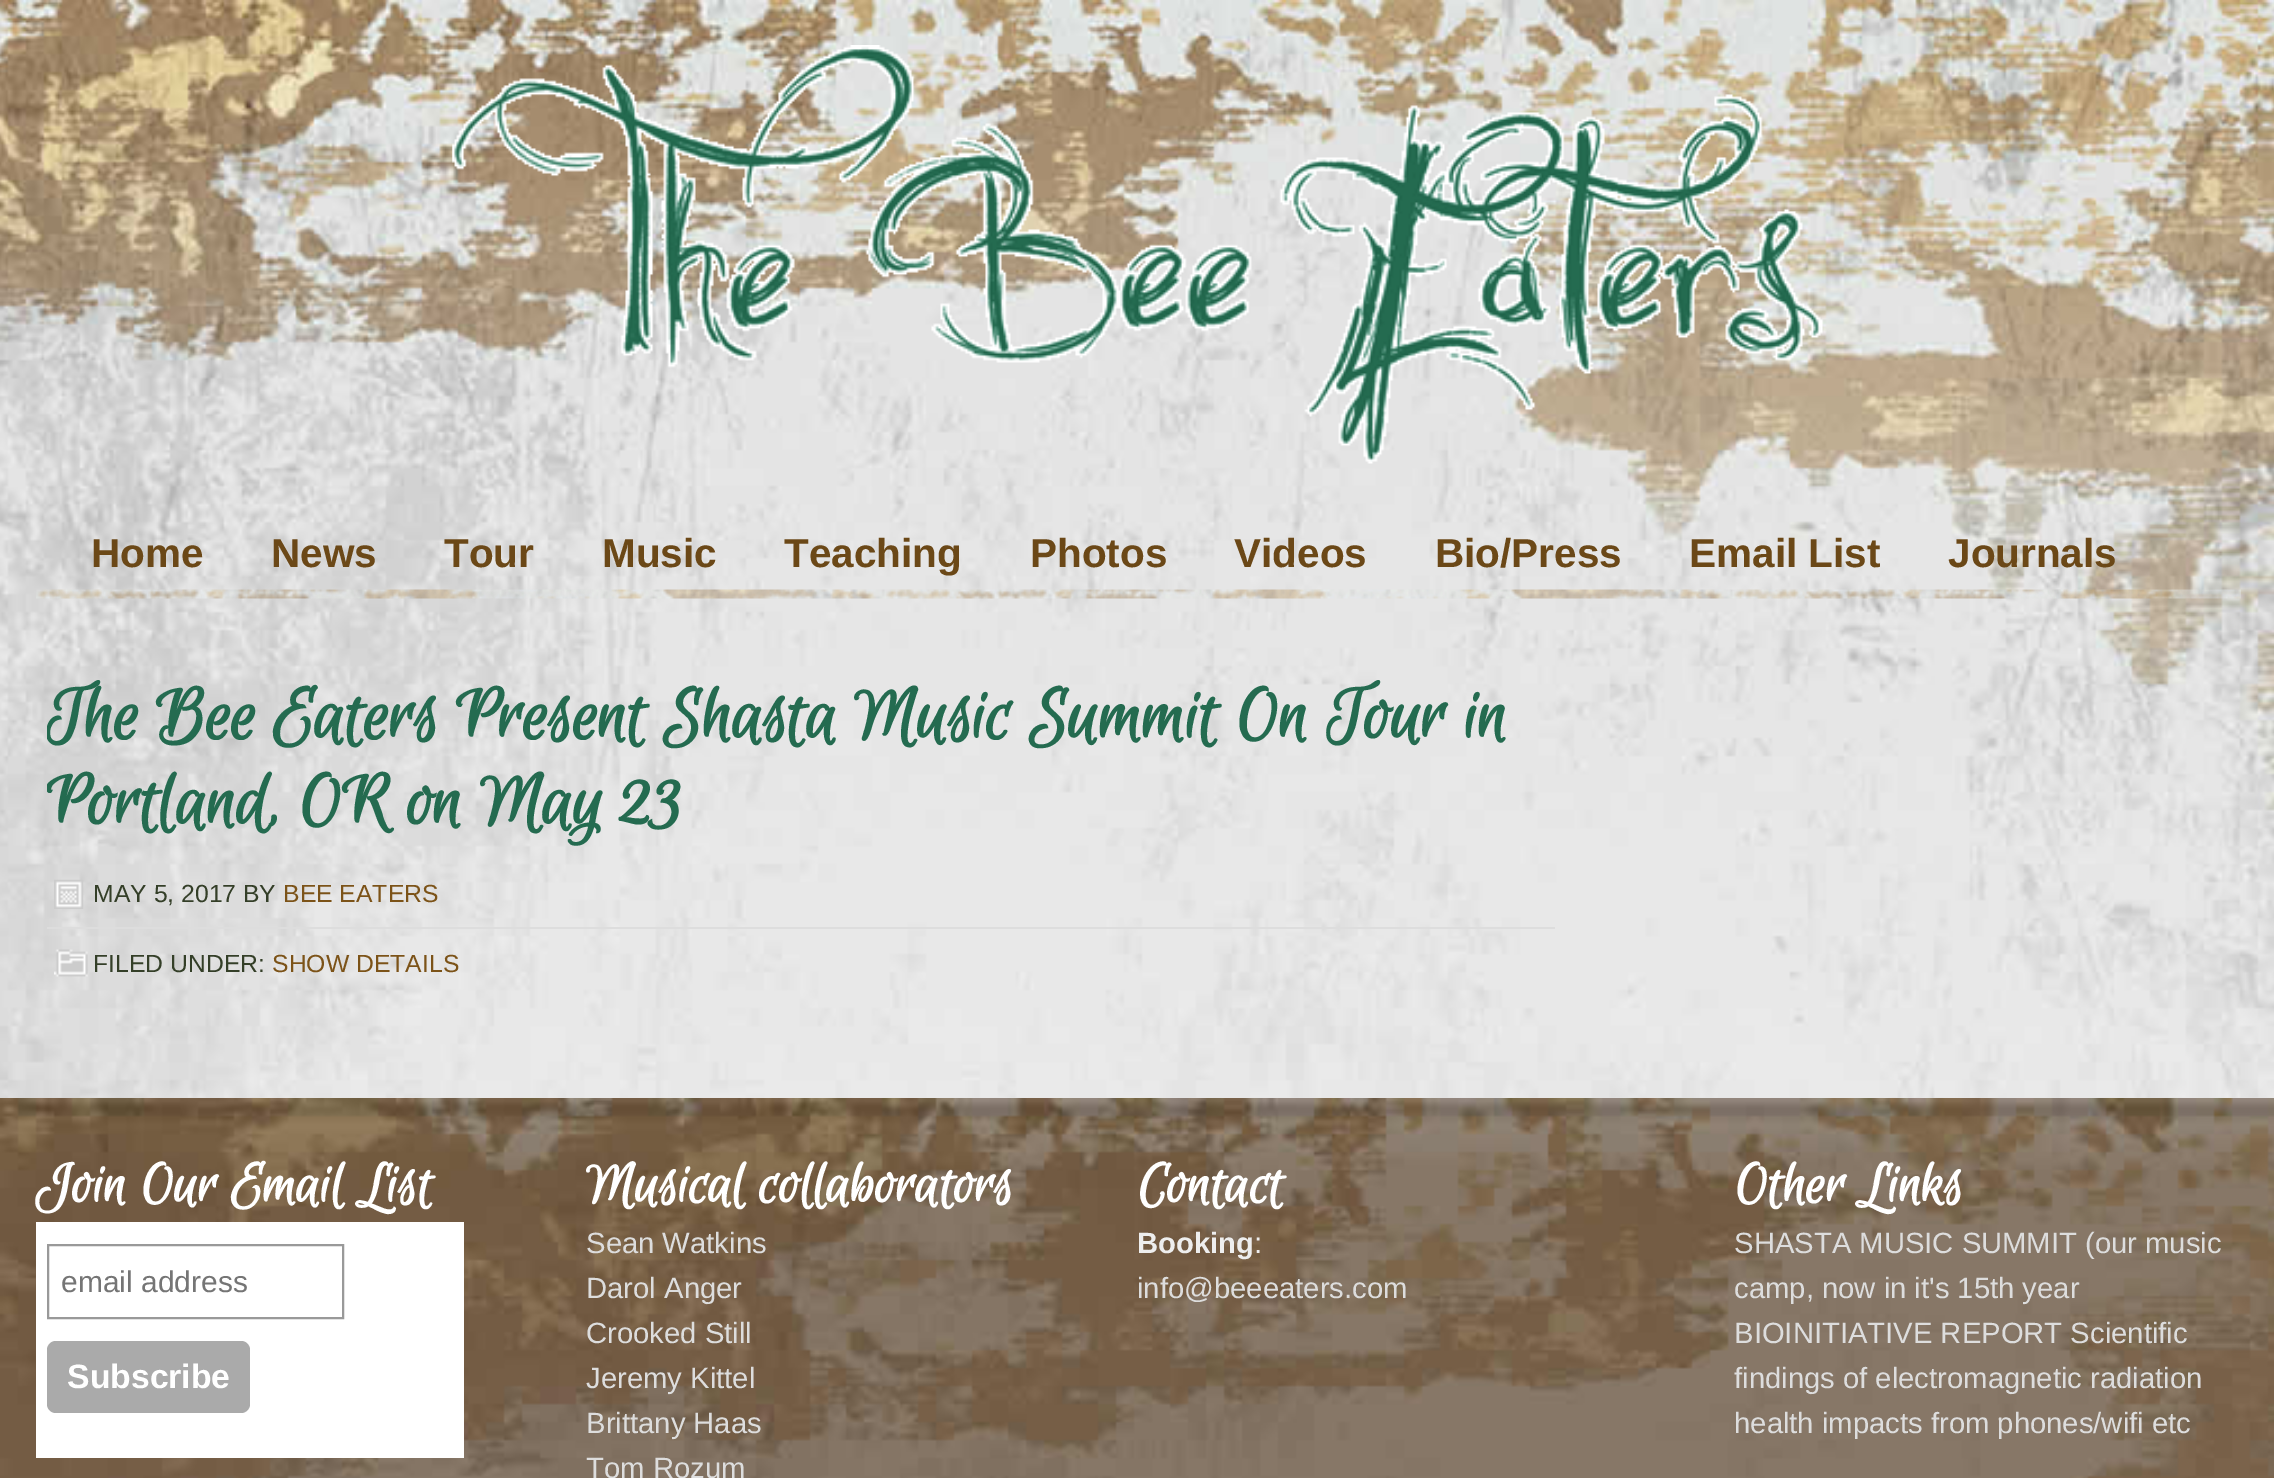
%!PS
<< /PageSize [2274 1478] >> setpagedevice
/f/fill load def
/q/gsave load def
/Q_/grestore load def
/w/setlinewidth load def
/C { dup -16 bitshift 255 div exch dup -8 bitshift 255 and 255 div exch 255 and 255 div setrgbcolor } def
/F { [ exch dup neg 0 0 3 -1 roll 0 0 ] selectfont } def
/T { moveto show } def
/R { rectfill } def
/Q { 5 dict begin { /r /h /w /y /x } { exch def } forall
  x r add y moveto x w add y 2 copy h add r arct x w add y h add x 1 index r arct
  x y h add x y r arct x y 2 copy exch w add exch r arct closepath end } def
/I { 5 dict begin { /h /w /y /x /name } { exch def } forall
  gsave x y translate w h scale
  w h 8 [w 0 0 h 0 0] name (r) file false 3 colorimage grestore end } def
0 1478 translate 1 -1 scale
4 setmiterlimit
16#FFFFFF C
0 0 2274 1478 R
(1.rgb) 0 0 2274 1098 I
(2.rgb) 452 45 1371 419 I
(3.rgb) 36 589 2205 10 I
/LiberationSans-Bold 40.5 F
16#6B4817 C
(Home) 91 567 T
(News) 271 567 T
(Tour) 444 567 T
(Music) 602 567 T
(Teaching) 784 567 T
(Photos) 1030 567 T
(Videos) 1234 567 T
(Bio/Press) 1435 567 T
(Email List) 1689 567 T
(Journals) 1948 567 T
q
47 677 2183 399 rectclip
/EuphoriaScript-Bold 81 F
16#246B50 C
(The Bee Eaters Present Shasta Music Summit On Tour in) 46 738 T
(Portland, OR on May 23) 46 824 T
Q_
(4.rgb) 54 879 30 30 I
/LiberationSans-Regular 24.75 F
16#343F28 C
(MAY 5, 2017 BY) 93 902 T
16#7C5318 C
(BEE EATERS) 283 902 T
16#DDDDDD C
47 927 1508 2 R
(5.rgb) 54 949 34 28 I
16#343F28 C
(FILED UNDER:) 93 972 T
16#7C5318 C
(SHOW DETAILS) 272 972 T
(6.rgb) 0 1098 2274 380 I
/EuphoriaScript-Bold 63 F
16#FFFFFF C
(Join Our Email List) 35 1202 T
36 1222 428 236 R
16#999999 C
2 w
48 1245 295 73 rectstroke
/LiberationSans-Regular 30 F
16#757575 C
(email address) 61 1292 T
16#AAAAAA C
47 1341 203 72 9 Q f
/LiberationSans-Bold 33.75 F
16#FFFFFF C
(Subscribe) 67 1388 T
/EuphoriaScript-Bold 63 F
(Musical collaborators) 586 1202 T
/LiberationSans-Regular 29.25 F
16#DDDDDD C
(Sean Watkins) 586 1253 T
(Darol Anger) 586 1298 T
(Crooked Still) 586 1343 T
(Jeremy Kittel) 586 1388 T
(Brittany Haas) 586 1433 T
(Tom Rozum) 586 1478 T
/EuphoriaScript-Bold 63 F
16#FFFFFF C
(Contact) 1137 1202 T
/LiberationSans-Bold 29.25 F
16#EEEEEE C
(Booking) 1137 1253 T
/LiberationSans-Regular 29.25 F
(:) 1254 1253 T
16#DDDDDD C
(info@beeeaters.com) 1137 1298 T
/EuphoriaScript-Bold 63 F
16#FFFFFF C
(Other Links) 1734 1202 T
/LiberationSans-Regular 29.25 F
16#DDDDDD C
(SHASTA MUSIC SUMMIT \(our music) 1734 1253 T
(camp, now in it's 15th year) 1734 1298 T
(BIOINITIATIVE REPORT Scientific) 1734 1343 T
(findings of electromagnetic radiation) 1734 1388 T
(health impacts from phones/wifi etc) 1734 1433 T
showpage
